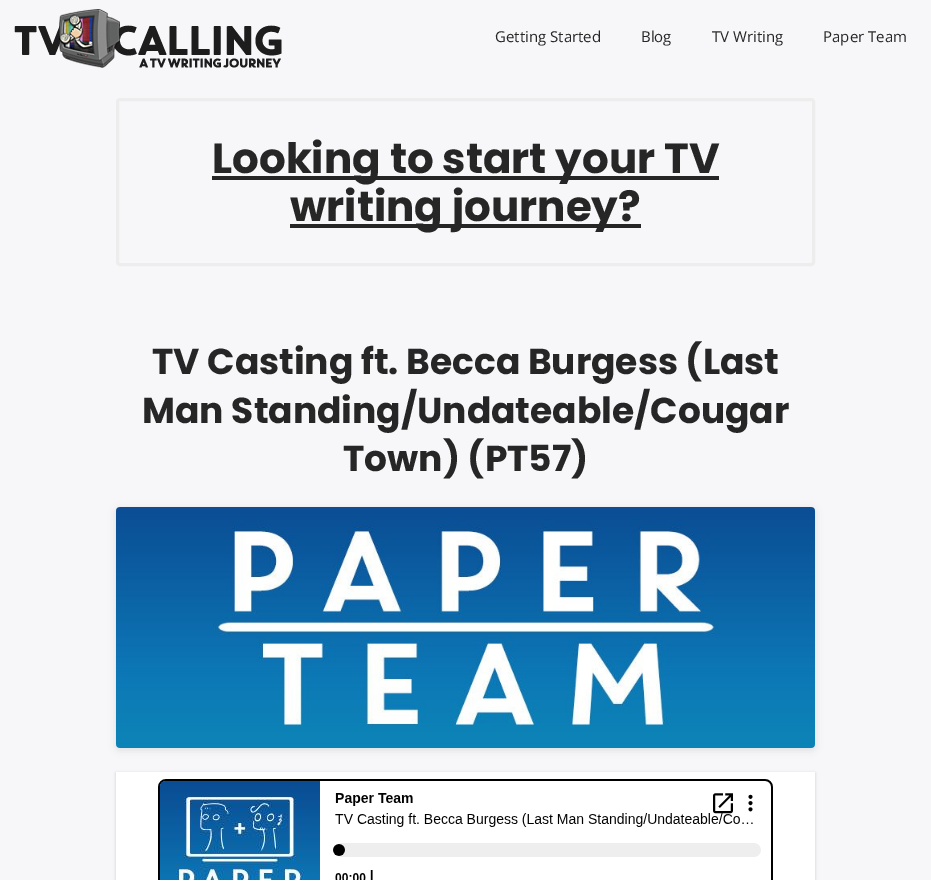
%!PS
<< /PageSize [931 880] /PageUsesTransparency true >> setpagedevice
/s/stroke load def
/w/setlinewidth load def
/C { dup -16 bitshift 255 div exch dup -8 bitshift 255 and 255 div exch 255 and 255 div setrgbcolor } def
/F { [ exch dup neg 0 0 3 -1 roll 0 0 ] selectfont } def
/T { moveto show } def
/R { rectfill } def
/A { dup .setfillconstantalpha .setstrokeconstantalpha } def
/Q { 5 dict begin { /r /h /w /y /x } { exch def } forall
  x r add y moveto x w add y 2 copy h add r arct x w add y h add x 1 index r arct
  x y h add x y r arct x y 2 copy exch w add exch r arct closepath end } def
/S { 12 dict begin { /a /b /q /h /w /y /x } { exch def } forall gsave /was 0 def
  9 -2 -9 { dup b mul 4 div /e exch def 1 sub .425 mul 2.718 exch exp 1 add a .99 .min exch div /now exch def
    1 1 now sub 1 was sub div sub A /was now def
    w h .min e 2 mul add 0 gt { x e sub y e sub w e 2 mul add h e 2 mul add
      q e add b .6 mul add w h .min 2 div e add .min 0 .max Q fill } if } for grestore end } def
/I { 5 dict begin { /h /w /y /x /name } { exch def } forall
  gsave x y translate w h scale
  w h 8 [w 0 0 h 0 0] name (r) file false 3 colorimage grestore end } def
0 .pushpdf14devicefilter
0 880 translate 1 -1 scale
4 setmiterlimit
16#F7F7FA C
0 0 931 880 R
(1.rgb) 14 9 268 59 I
/OpenSans-Regular 15 F
16#262626 C
(Getting Started) 495 42 T
(Blog) 641 42 T
(TV Writing) 712 42 T
(Paper Team) 823 42 T
16#EDEDED C
3 w
117.5 99.5 696 165 2.5 Q s
16#262626 C
212 176 507 4 R
/Poppins-Bold 42 F
(Looking to start your TV) 212 173 T
290 224 351 4 R
(writing journey?) 290 221 T
/Poppins-Bold 36 F
(TV Casting ft. Becca Burgess \(Last) 152 374 T
(Man Standing/Undateable/Cougar) 142 423 T
(Town\) \(PT57\)) 343 471 T
16#000000 C
116 509 699 241 4 4 .1 S
(2.rgb) 116 507 699 241 I
116 773 699 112 0 1.5 .15 S
16#FFFFFF C
116 772 699 108 R
(3.rgb) 158 779 615 101 I
.poppdf14devicefilter showpage
